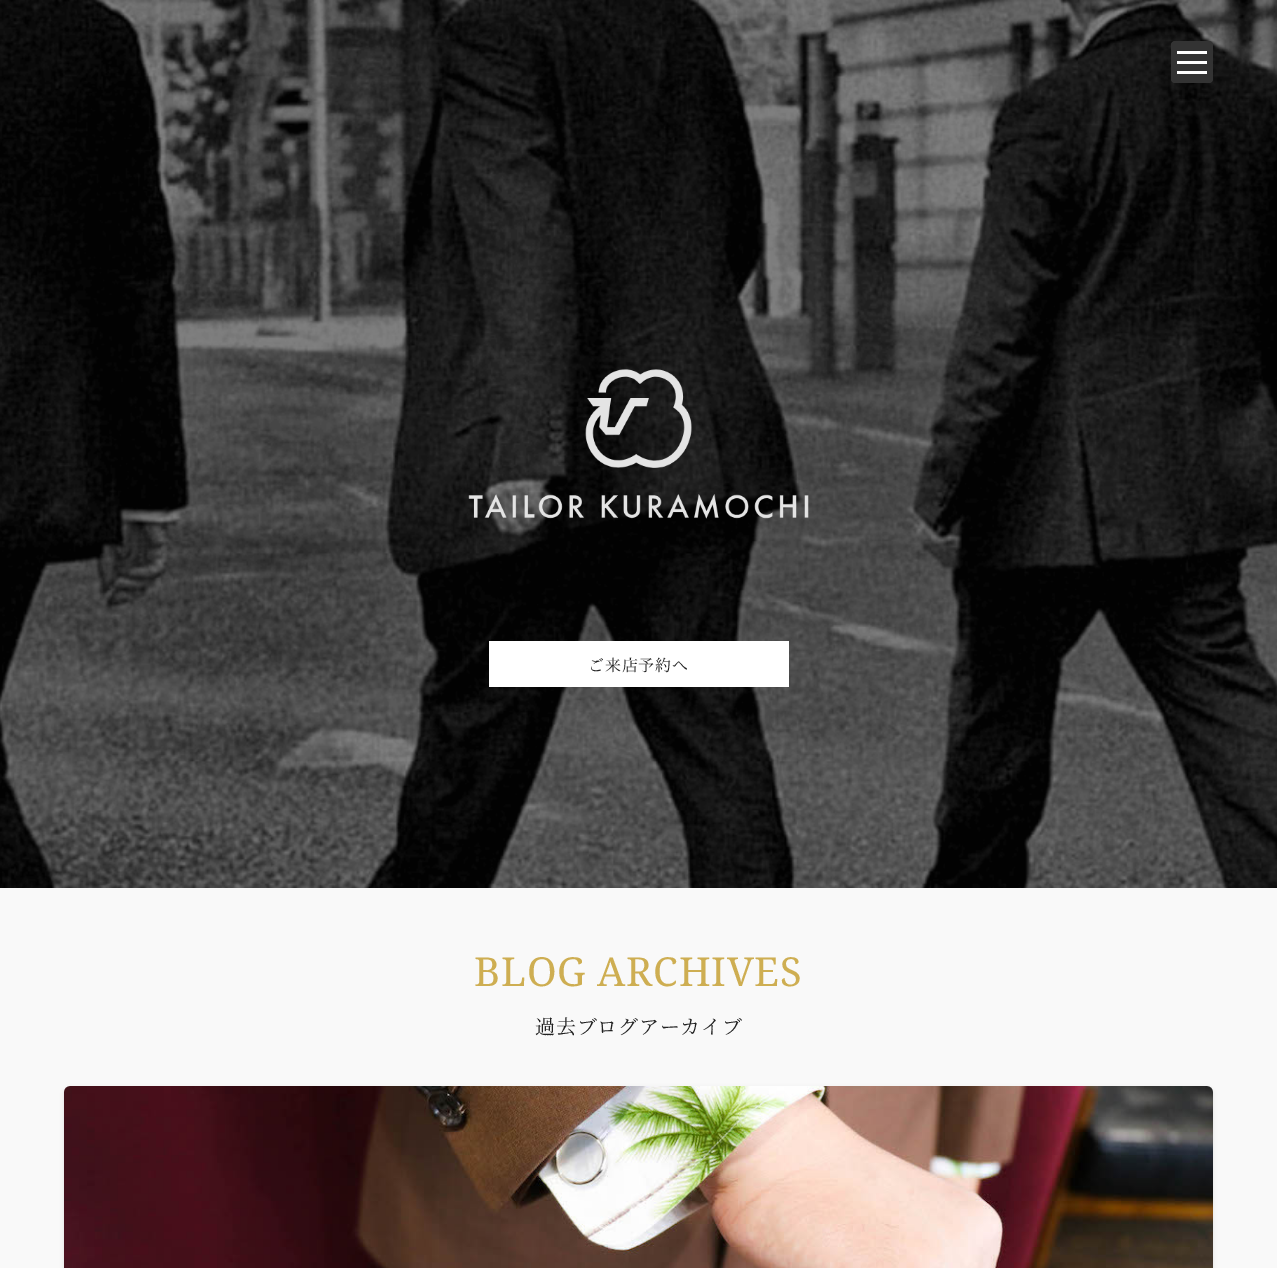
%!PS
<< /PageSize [1277 1268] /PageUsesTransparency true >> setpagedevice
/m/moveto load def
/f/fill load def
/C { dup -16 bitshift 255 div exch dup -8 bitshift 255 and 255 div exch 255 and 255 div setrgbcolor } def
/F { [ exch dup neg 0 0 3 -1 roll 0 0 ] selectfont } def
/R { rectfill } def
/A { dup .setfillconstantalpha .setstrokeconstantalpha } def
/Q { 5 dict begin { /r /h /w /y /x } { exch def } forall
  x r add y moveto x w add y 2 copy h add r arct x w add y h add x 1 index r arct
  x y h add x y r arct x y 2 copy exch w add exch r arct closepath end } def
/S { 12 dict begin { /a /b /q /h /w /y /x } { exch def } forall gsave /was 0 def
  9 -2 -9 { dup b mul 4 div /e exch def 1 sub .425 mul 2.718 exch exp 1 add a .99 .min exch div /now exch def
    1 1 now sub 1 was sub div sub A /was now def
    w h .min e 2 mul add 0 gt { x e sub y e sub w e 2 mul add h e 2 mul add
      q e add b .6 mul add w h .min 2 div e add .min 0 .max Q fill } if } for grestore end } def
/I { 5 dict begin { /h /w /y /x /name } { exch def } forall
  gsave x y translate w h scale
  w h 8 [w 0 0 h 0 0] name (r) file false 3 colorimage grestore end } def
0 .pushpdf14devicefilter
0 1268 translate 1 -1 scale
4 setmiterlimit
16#F9F9F9 C
0 0 1277 1268 R
(1.rgb) 0 0 1277 888 I
16#333333 C
1171 41 42 42 4 Q f
16#FFFFFF C
1177 51 30 3 R
1177 61 30 3 R
1177 71 30 3 R
(2.rgb) 468 369 341 150 I
489 641 300 46 R
/NotoSerifJP-Regular 16 F
16#222222 C
588 671 m .75 0 (ご来店予約へ) ashow
/NotoSerif-Regular 40 F
16#CEAE52 C
474 986 m .75 0 (BLOG ARCHIVES) ashow
/NotoSerifJP-Regular 20 F
16#222222 C
535 1034 m .75 0 (過去ブログアーカイブ) ashow
16#000000 C
64 1088 1149 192 6 2 .1 S
(3.rgb) 64 1086 1149 182 I
.poppdf14devicefilter showpage
